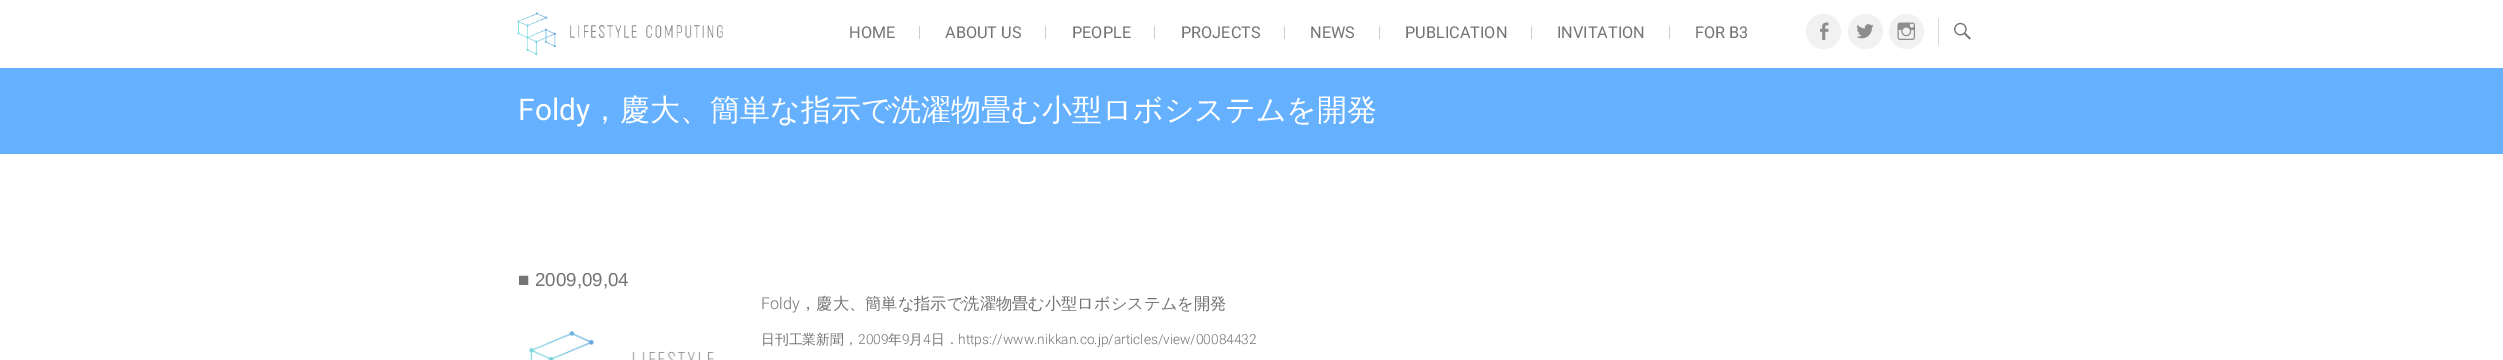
%!PS
<< /PageSize [2503 360] >> setpagedevice
/f/fill load def
/C { dup -16 bitshift 255 div exch dup -8 bitshift 255 and 255 div exch 255 and 255 div setrgbcolor } def
/F { [ exch dup neg 0 0 3 -1 roll 0 0 ] selectfont } def
/T { moveto show } def
/R { rectfill } def
/O { newpath 0 360 arc closepath } def
/I { 5 dict begin { /h /w /y /x /name } { exch def } forall
  gsave x y translate w h scale
  w h 8 [w 0 0 h 0 0] name (r) file false 3 colorimage grestore end } def
0 360 translate 1 -1 scale
4 setmiterlimit
16#FFFFFF C
0 0 2503 360 R
(1.rgb) 517 12 206 43 I
/Roboto-Regular 16.25 F
16#747474 C
(HOME) 849 38 T
16#CCCCCC C
919 26 1 13 R
16#747474 C
(ABOUT US) 945 38 T
16#CCCCCC C
1045 26 1 13 R
16#747474 C
(PEOPLE) 1072 38 T
16#CCCCCC C
1154 26 1 13 R
16#747474 C
(PROJECTS) 1181 38 T
16#CCCCCC C
1284 26 1 13 R
16#747474 C
(NEWS) 1310 38 T
16#CCCCCC C
1379 26 1 13 R
16#747474 C
(PUBLICATION) 1405 38 T
16#CCCCCC C
1531 26 1 13 R
16#747474 C
(INVITATION) 1557 38 T
16#CCCCCC C
1669 26 1 13 R
16#747474 C
(FOR B3) 1695 38 T
16#F1F1F1 C
1823.5 31.5 17.5 O f
(2.rgb) 1820 22 9 18 I
1865.5 31.5 17.5 O f
(3.rgb) 1856 24 18 15 I
1906.5 31.5 17.5 O f
(4.rgb) 1897 22 18 18 I
16#D9D9D9 C
1938 18 1 27 R
(5.rgb) 1954 22 17 18 I
16#65B1FF C
0 68 2503 86 R
/Roboto-Regular 30 F
16#FFFFFF C
(Foldy) 518 120 T
/WenQuanYiZenHei-Medium 30 F
(，慶大、簡単な指示で洗濯物畳む小型ロボシステムを開発) 590 120 T
/LiberationSans-Regular 18.75 F
16#747474 C
(■) 518 286 T
(2009,09,04) 535 286 T
(6.rgb) 529 331 185 29 I
/Roboto-Light 16.25 F
(Foldy) 761 309 T
/WenQuanYiZenHei-Medium 16.25 F
(，慶大、簡単な指示で洗濯物畳む小型ロボシステムを開発) 800 309 T
/WenQuanYiZenHei-Medium 13.75 F
(日刊工業新聞，) 761 344 T
/Roboto-Light 13.75 F
(2009) 858 344 T
/WenQuanYiZenHei-Medium 13.75 F
(年) 888 344 T
/Roboto-Light 13.75 F
(9) 902 344 T
/WenQuanYiZenHei-Medium 13.75 F
(月) 909 344 T
/Roboto-Light 13.75 F
(4) 923 344 T
/WenQuanYiZenHei-Medium 13.75 F
(日．) 931 344 T
/Roboto-Light 13.75 F
(https://www.nikkan.co.jp/articles/view/00084432) 958 344 T
showpage
